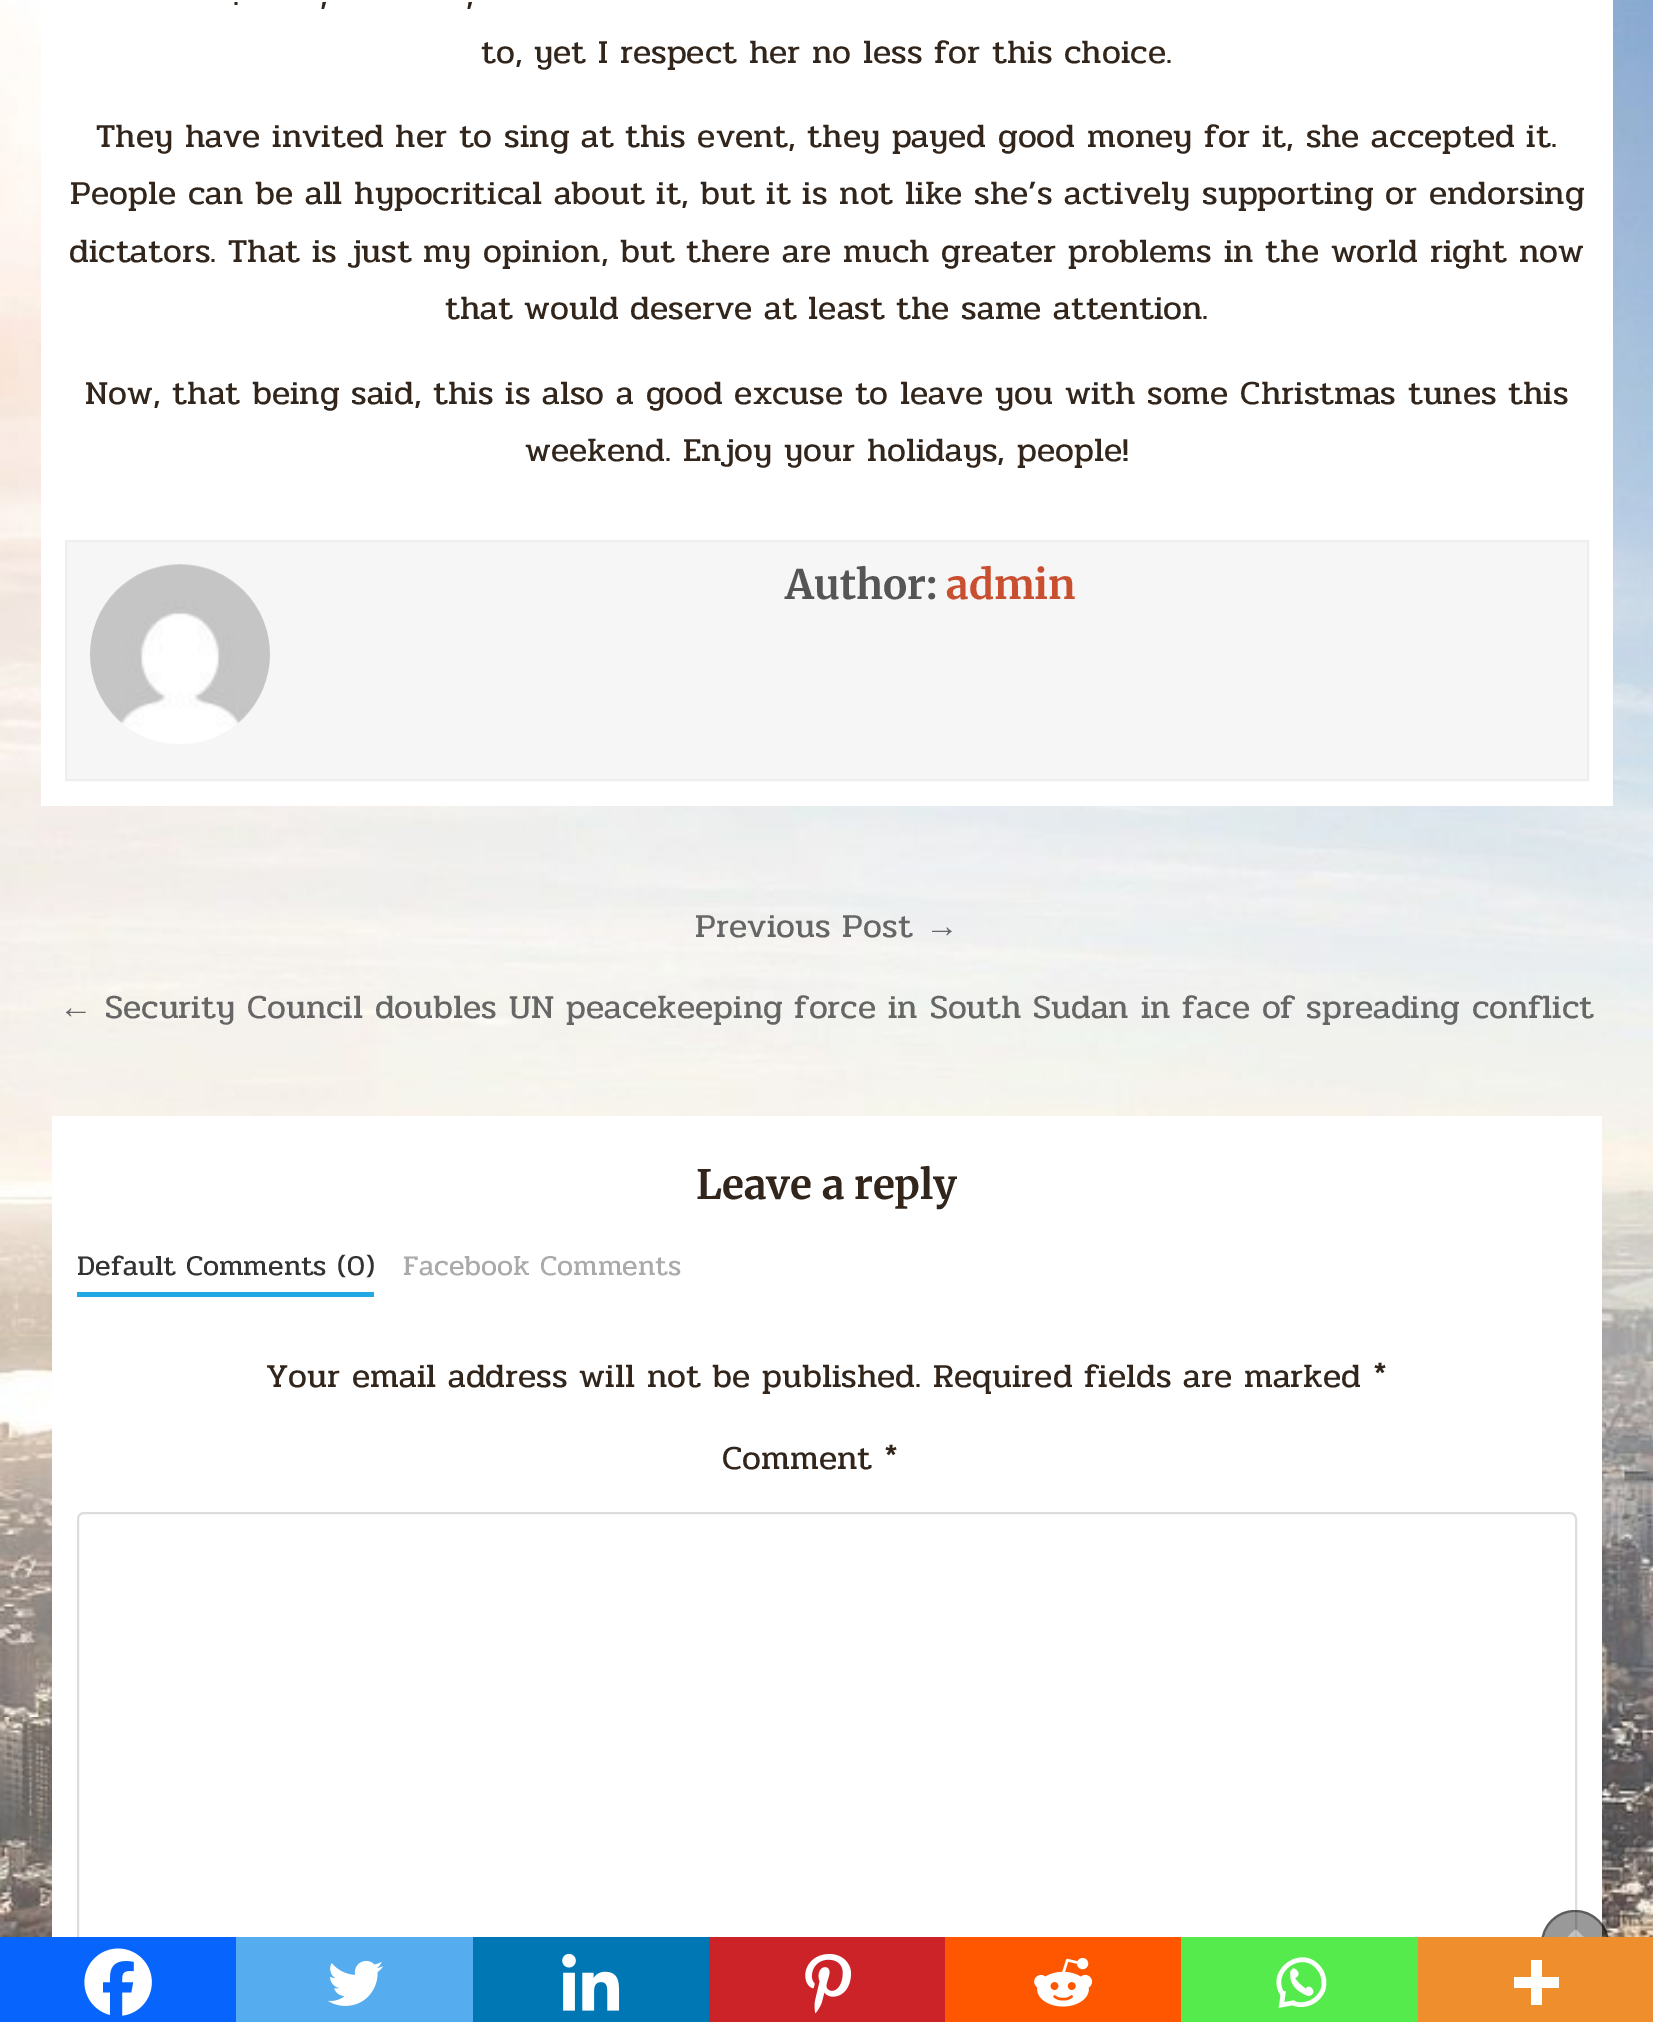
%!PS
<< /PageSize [1653 2022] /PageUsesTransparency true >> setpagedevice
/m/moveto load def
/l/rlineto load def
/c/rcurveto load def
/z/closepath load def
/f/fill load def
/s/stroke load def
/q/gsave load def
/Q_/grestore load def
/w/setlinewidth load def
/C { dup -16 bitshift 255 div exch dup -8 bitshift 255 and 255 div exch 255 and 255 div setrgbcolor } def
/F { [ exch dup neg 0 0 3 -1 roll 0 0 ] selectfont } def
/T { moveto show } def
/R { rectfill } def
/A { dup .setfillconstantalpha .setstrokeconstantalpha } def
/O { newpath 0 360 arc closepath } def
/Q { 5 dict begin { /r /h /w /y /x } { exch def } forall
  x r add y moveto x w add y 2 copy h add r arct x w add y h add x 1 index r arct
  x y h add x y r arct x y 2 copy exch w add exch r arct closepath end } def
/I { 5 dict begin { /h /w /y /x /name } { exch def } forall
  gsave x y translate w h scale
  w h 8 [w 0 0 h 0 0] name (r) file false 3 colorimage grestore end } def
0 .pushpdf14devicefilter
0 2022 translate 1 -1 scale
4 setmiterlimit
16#FFFFFF C
0 0 1653 2022 R
(1.rgb) 0 0 1653 1937 I
41 0 1572 806 R
/Pridi-Regular 33.75 F
16#31251C C
(.) 233 5 T
(,) 320 5 T
(,) 466 5 T
(to, yet I respect her no less for this choice.) 481 63 T
(They have invited her to sing at this event, they payed good money for it, she accepted it.) 96 147 T
(People can be all hypocritical about it, but it is not like she’s actively supporting or endorsing) 70 204 T
(dictators. That is just my opinion, but there are much greater problems in the world right now) 69 262 T
(that would deserve at least the same attention.) 445 319 T
(Now, that being said, this is also a good excuse to leave you with some Christmas tunes this) 85 404 T
(weekend. Enjoy your holidays, people!) 525 461 T
16#FFFFFF C
52 1116 1550 821 R
16#DDDDDD C
2 w
78 1513 1498 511 6 Q s
16#0765FE C
0 1937 236 85 R
(2.rgb) 84 1948 68 68 I
16#55ACEE C
236 1937 237 85 R
(3.rgb) 328 1960 56 46 I
16#0077B5 C
473 1937 236 85 R
(4.rgb) 562 1953 58 58 I
16#CC2329 C
709 1937 236 85 R
(5.rgb) 805 1954 47 60 I
16#FF5700 C
945 1937 236 85 R
(6.rgb) 1034 1957 59 50 I
16#55EB4C C
1181 1937 237 85 R
16#FFFFFF C
4.5 w
1294 2003.5 m 11.5 4 25 -2.5 29 -14 c 2 -6.5 1 -13.5 -2.5 -19 c -16 -26 -54.5 0 -37.5 24.5 c 1283.5 1991 m -2 14 l 13.5 -2.5 l s
1290.5 1971 m -1.5 12 4.5 20 18 25 c 11 -2.5 0 -14 -2.5 -7 c -6 -4.5 -9.5 -8 -11 -11 c 9 -5 -2.5 -11.5 -2.5 -9 c f
0.4 A
16#000000 C
1575 1944 34 O f
2 w
1575 1944 33 O s
1 A
16#EE8E2D C
1418 1937 235 85 R
16#FFFFFF C
1542 1977 m 0 -17 l -11 0 l 0 17 l -17 0 l 0 11 l 17 0 l 0 17 l 11 0 l 0 -17 l 17 0 l 0 -11 l z eofill
16#F6F6F6 C
66 541 m 1522 0 l 0 239 l -1522 0 l z q f Q_
16#EEEEEE C
s
(7.rgb) 90 564 180 180 I
/Merriweather-Bold 40.5 F
16#555555 C
(Author:) 785 599 T
16#C94F31 C
(admin) 946 599 T
/Pridi-Regular 33.75 F
16#666666 C
(Previous Post) 695 937 T
/LiberationSans-Regular 33.75 F
(→) 925 937 T
(←) 59 1018 T
/Pridi-Regular 33.75 F
(Security Council doubles UN peacekeeping force in South Sudan in face of spreading conflict) 105 1018 T
/Merriweather-Bold 40.5 F
16#31251C C
(Leave a reply) 696 1199 T
16#23A9E1 C
77 1292 297 5 R
/Pridi-Regular 28.75 F
16#333333 C
(Default Comments \(0\)) 77 1275 T
16#AAAAAA C
(Facebook Comments) 403 1275 T
/Pridi-Regular 33.75 F
16#31251C C
(Your email address will not be published. Required fields are marked *) 266 1387 T
(Comment *) 722 1469 T
(8.rgb) 1567 1929 17 8 I
.poppdf14devicefilter showpage
